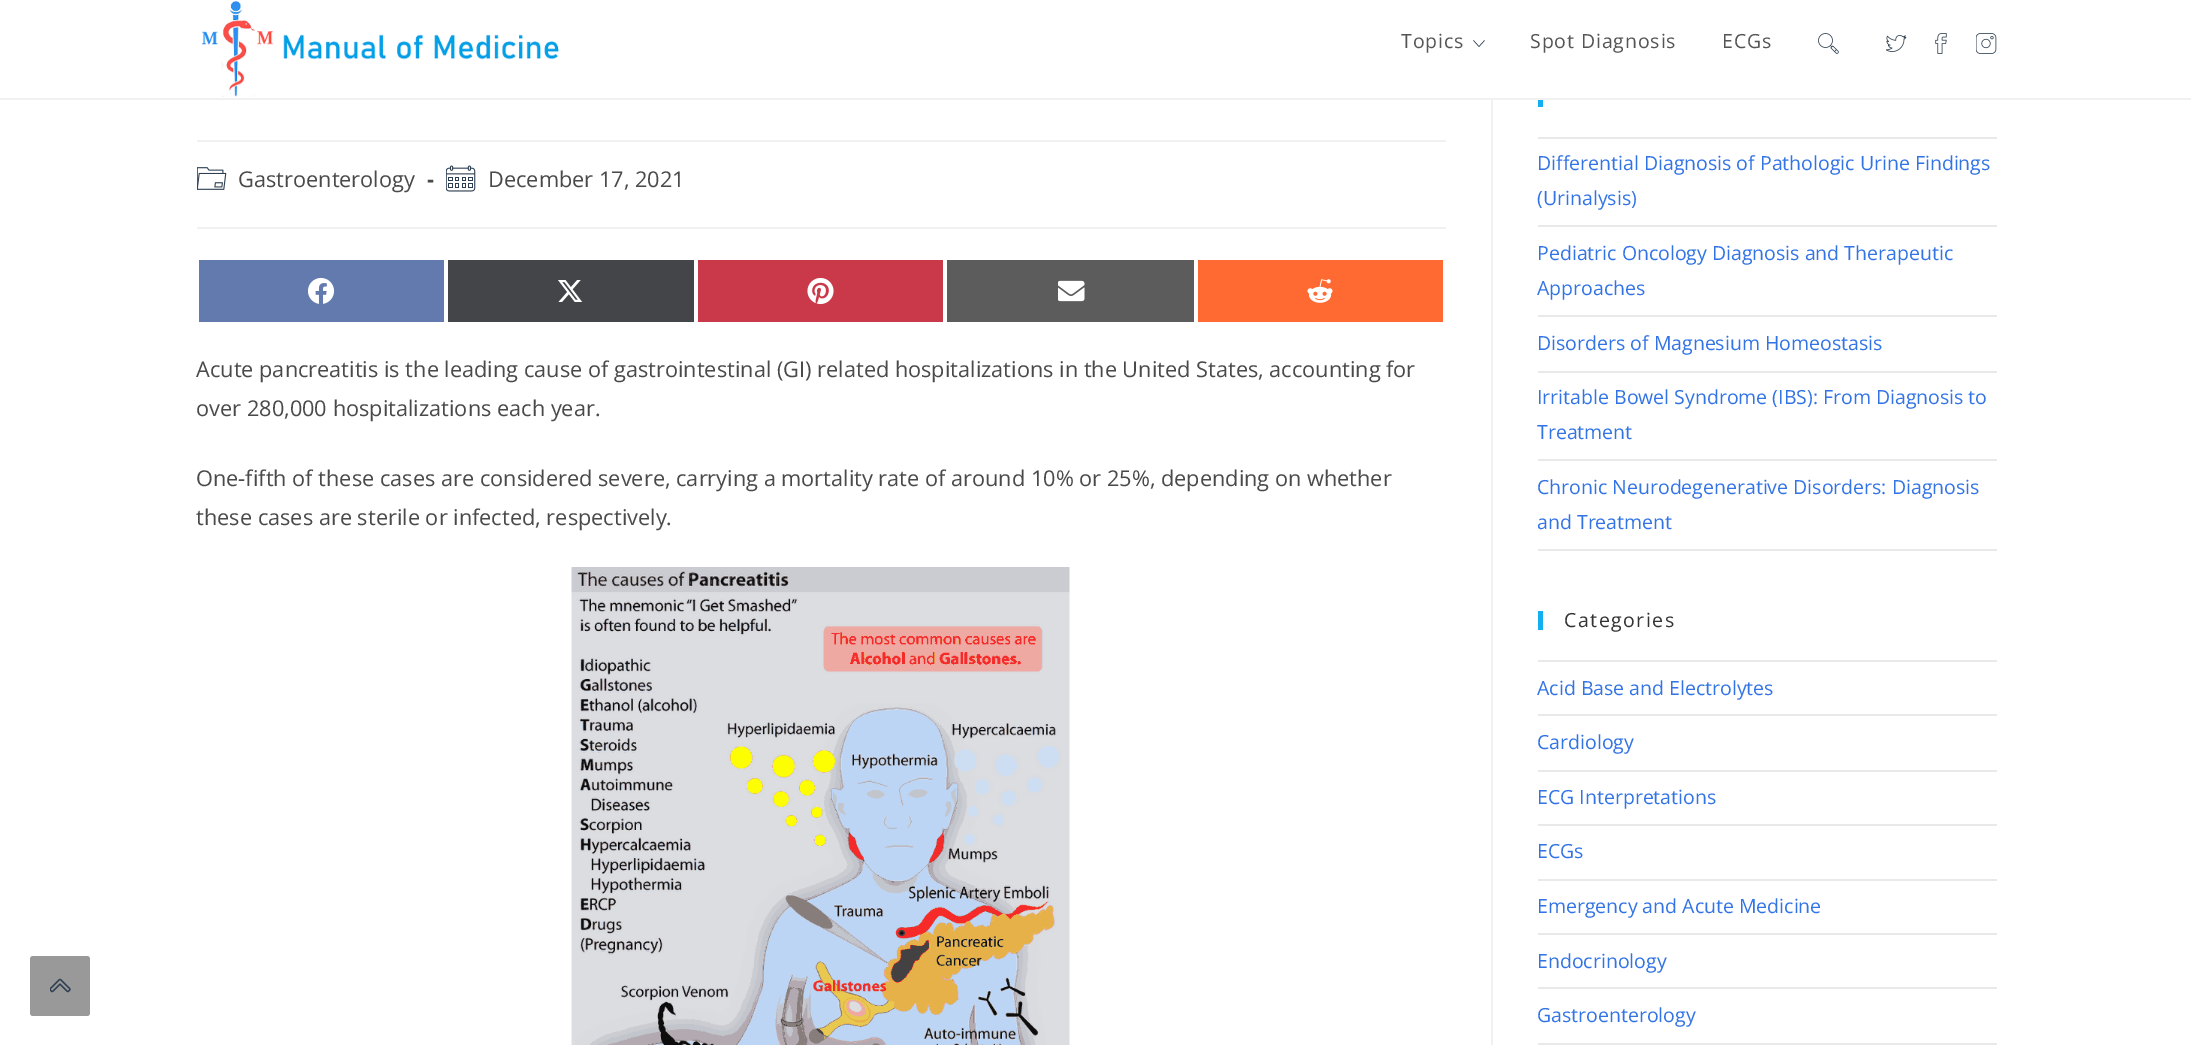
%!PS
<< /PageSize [2191 1045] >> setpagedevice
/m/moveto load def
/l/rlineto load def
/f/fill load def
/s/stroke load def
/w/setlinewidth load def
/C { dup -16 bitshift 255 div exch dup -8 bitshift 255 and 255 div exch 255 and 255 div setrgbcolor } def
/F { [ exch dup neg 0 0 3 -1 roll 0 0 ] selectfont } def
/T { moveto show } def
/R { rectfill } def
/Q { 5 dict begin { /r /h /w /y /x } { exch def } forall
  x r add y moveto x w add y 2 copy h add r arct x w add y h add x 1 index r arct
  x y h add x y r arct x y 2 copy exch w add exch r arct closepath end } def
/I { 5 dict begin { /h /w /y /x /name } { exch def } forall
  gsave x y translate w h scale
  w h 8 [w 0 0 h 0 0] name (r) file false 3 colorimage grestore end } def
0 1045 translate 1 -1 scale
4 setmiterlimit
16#FFFFFF C
0 0 2191 1045 R
16#999999 C
30 956 60 60 3 Q f
(1.rgb) 50 978 21 15 I
16#F1F1F1 C
0 98 2191 2 R
(2.rgb) 202 1 357 96 I
/OpenSans-Regular 19.5 F
16#555555 C
1401 48 m .9 0 (Topics) ashow
16#2D3E50 C
.5 w
1484.5 40.5 m -5.5 6 l -5.5 -6 l s
16#555555 C
1530 48 m .9 0 (Spot Diagnosis) ashow
1722 48 m .9 0 (ECGs) ashow
(3.rgb) 1818 33 21 21 I
(4.rgb) 1886 35 21 17 I
(5.rgb) 1935 33 12 21 I
(6.rgb) 1976 33 21 21 I
16#F1F1F1 C
1491 100 2 945 R
197 140 1249 2 R
197 227 1249 2 R
(7.rgb) 197 167 30 23 I
/OpenSans-Regular 21.75 F
16#4A4A4A C
(Gastroenterology) 238 187 T
/OpenSans-Bold 21.75 F
(-) 427 187 T
(8.rgb) 446 165 30 27 I
/OpenSans-Regular 21.75 F
(December 17, 2021) 488 187 T
16#627AAD C
199 260 245 62 R
(9.rgb) 308 278 27 26 I
16#434548 C
448 260 246 62 R
(10.rgb) 558 280 25 22 I
16#CA3949 C
698 260 245 62 R
(11.rgb) 807 278 27 27 I
16#5C5C5C C
947 260 247 62 R
(12.rgb) 1058 280 27 22 I
16#FF6A33 C
1198 260 245 62 R
(13.rgb) 1307 279 26 24 I
16#4A4A4A C
(Acute pancreatitis is the leading cause of gastrointestinal \(GI\) related hospitalizations in the United States, accounting for) 196 377 T
(over 280,000 hospitalizations each year.) 196 416 T
(One-fifth of these cases are considered severe, carrying a mortality rate of around 10% or 25%, depending on whether) 196 486 T
(these cases are sterile or infected, respectively.) 196 525 T
(14.rgb) 571 567 499 478 I
16#13AFF0 C
1538 100 5 7 R
16#E9E9E9 C
1538 137 459 2 R
1538 225 459 2 R
/OpenSans-Regular 19.5 F
16#3274E5 C
(Differential Diagnosis of Pathologic Urine Findings) 1537 170 T
(\(Urinalysis\)) 1537 205 T
16#E9E9E9 C
1538 315 459 2 R
16#3274E5 C
(Pediatric Oncology Diagnosis and Therapeutic) 1537 260 T
(Approaches) 1537 295 T
16#E9E9E9 C
1538 371 459 2 R
16#3274E5 C
(Disorders of Magnesium Homeostasis) 1537 350 T
16#E9E9E9 C
1538 459 459 2 R
16#3274E5 C
(Irritable Bowel Syndrome \(IBS\): From Diagnosis to) 1537 404 T
(Treatment) 1537 439 T
16#E9E9E9 C
1538 549 459 2 R
16#3274E5 C
(Chronic Neurodegenerative Disorders: Diagnosis) 1537 494 T
(and Treatment) 1537 529 T
16#13AFF0 C
1538 611 5 19 R
16#333333 C
1564 627 m 1.5 0 (Categories) ashow
16#E9E9E9 C
1538 660 459 2 R
1538 714 459 2 R
16#3274E5 C
(Acid Base and Electrolytes) 1537 695 T
16#E9E9E9 C
1538 770 459 2 R
16#3274E5 C
(Cardiology) 1537 749 T
16#E9E9E9 C
1538 824 459 2 R
16#3274E5 C
(ECG Interpretations) 1537 804 T
16#E9E9E9 C
1538 879 459 2 R
16#3274E5 C
(ECGs) 1537 858 T
16#E9E9E9 C
1538 933 459 2 R
16#3274E5 C
(Emergency and Acute Medicine) 1537 913 T
16#E9E9E9 C
1538 987 459 2 R
16#3274E5 C
(Endocrinology) 1537 968 T
16#E9E9E9 C
1538 1043 459 2 R
16#3274E5 C
(Gastroenterology) 1537 1022 T
showpage
